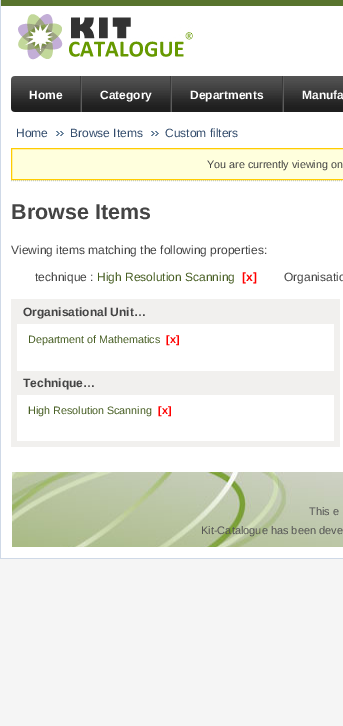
%!PS
<< /PageSize [343 726] >> setpagedevice
/m/moveto load def
/l/rlineto load def
/z/closepath load def
/f/fill load def
/s/stroke load def
/q/gsave load def
/Q_/grestore load def
/C { dup -16 bitshift 255 div exch dup -8 bitshift 255 and 255 div exch 255 and 255 div setrgbcolor } def
/F { [ exch dup neg 0 0 3 -1 roll 0 0 ] selectfont } def
/T { moveto show } def
/R { rectfill } def
/I { 5 dict begin { /h /w /y /x /name } { exch def } forall
  gsave x y translate w h scale
  w h 8 [w 0 0 h 0 0] name (r) file false 3 colorimage grestore end } def
0 726 translate 1 -1 scale
4 setmiterlimit
16#F5F5F5 C
0 0 343 726 R
16#FFFFFF C
1 6 342 552 R
16#58742D C
0 0 343 6 R
16#CFD9E7 C
0 558 343 1 R
0 0 1 559 R
(1.rgb) 18 14 175 46 I
16#B7CDE6 C
[1 1] 0 setdash
11 180.5 m 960 0 l s
(2.rgb) 11 76 332 36 I
16#3A3A3A C
80 76 1 36 R
/LiberationSans-Bold 12 F
16#FFFFFF C
(Home) 29 99 T
16#3A3A3A C
170 76 1 36 R
16#5B5B5B C
81 76 1 36 R
16#FFFFFF C
(Category) 100 99 T
16#3A3A3A C
282 76 1 36 R
16#5B5B5B C
171 76 1 36 R
16#FFFFFF C
(Departments) 190 99 T
16#5B5B5B C
283 76 1 36 R
16#FFFFFF C
(Manufa) 302 99 T
/LiberationSans-Regular 12 F
16#344D6D C
(Home) 16 137 T
(3.rgb) 56 131 8 5 I
(Browse Items) 70 137 T
(3.rgb) 151 131 8 5 I
(Custom filters) 165 137 T
16#FFFFDD C
11.5 148.5 m 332 0 l 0 31 l -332 0 l z q f Q_
16#FFCC00 C
[] 0 setdash
s
/LiberationSans-Regular 10.75 F
16#444444 C
(You are currently viewing on) 207 168 T
/LiberationSans-Bold 21.5 F
(Browse Items) 11 219 T
/LiberationSans-Regular 12 F
(Viewing items matching the following properties:) 11 254 T
(technique :) 35 281 T
16#485F24 C
(High Resolution Scanning) 97 281 T
/LiberationSans-Bold 12 F
16#FF0000 C
([x]) 242 281 T
/LiberationSans-Regular 12 F
16#444444 C
(Organisatio) 284 281 T
16#F1F0EE C
11 299 329 1 R
334 299 6 148 R
11 441 329 6 R
11 299 6 148 R
17 300 317 24 R
/LiberationSans-Bold 12 F
16#444444 C
(Organisational Unit…) 23 316 T
/LiberationSans-Regular 10.75 F
16#485F24 C
(Department of Mathematics) 28 343 T
/LiberationSans-Bold 10.75 F
16#FF0000 C
([x]) 166 343 T
16#F1F0EE C
17 371 317 24 R
/LiberationSans-Bold 12 F
16#444444 C
(Technique…) 23 387 T
/LiberationSans-Regular 10.75 F
16#485F24 C
(High Resolution Scanning) 28 414 T
/LiberationSans-Bold 10.75 F
16#FF0000 C
([x]) 158 414 T
(4.rgb) 12 472 331 75 I
/LiberationSans-Regular 11 F
16#555555 C
(This e) 309 515 T
(Kit-Catalogue has been deve) 201 534 T
showpage
